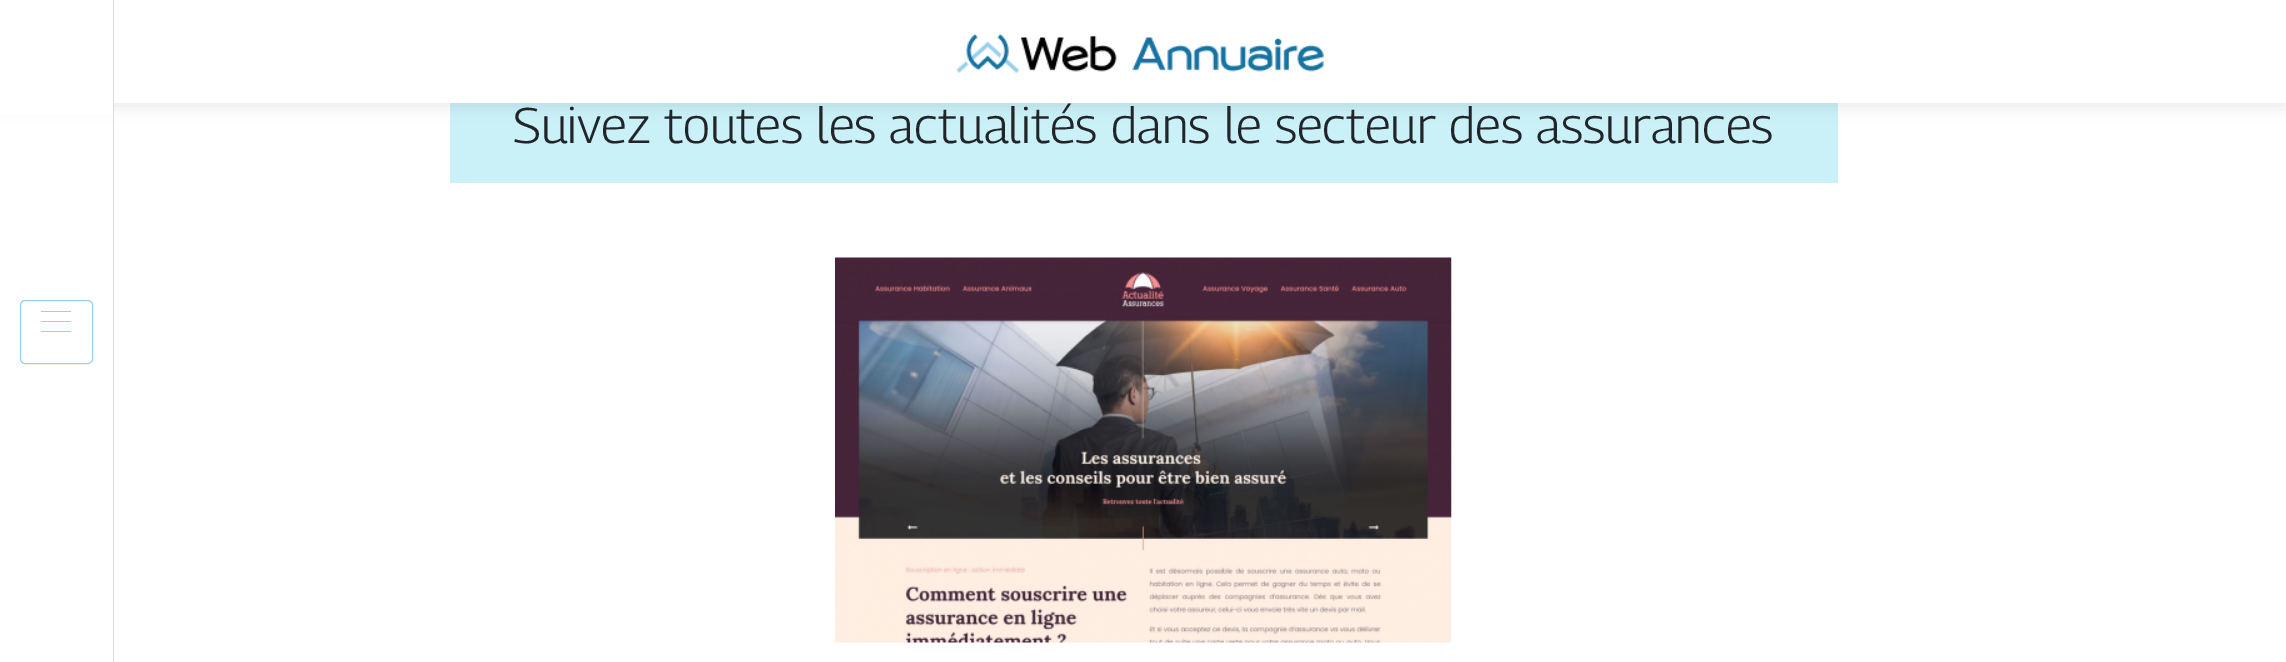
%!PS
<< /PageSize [2286 662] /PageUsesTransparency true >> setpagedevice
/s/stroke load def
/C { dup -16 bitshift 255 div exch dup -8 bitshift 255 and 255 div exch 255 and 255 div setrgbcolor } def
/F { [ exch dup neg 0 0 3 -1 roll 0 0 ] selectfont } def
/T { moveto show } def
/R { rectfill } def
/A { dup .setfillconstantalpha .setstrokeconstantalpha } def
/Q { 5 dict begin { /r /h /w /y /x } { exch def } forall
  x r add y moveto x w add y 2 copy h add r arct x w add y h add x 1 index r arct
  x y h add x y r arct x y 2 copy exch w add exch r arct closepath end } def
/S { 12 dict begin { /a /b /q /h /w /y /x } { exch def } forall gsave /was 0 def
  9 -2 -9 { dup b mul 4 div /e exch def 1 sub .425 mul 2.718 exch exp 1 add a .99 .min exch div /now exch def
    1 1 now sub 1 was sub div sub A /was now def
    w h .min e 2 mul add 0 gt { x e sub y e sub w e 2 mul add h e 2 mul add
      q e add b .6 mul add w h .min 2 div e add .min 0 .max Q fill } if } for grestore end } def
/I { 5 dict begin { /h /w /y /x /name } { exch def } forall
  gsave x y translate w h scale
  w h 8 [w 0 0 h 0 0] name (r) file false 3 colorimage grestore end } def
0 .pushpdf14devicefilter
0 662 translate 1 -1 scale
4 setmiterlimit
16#FFFFFF C
0 0 2286 662 R
16#CAF0F8 C
450 103 1388 80 R
16#000000 C
0 3 2286 102 0 8 .1 S
16#FFFFFF C
114 0 2172 103 R
0 0 113 115 R
16#DDDDDD C
113 0 1 662 R
16#9AD0EC C
20.5 300.5 72 63 4.5 Q s
41 311 30 1 R
41 321 30 1 R
41 331 30 1 R
(1.rgb) 956 33 368 41 I
/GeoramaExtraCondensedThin-Thin 50 F
16#212529 C
(Suivez toutes les actualités dans le secteur des assurances) 513 143 T
(2.rgb) 835 257 617 386 I
.poppdf14devicefilter showpage
